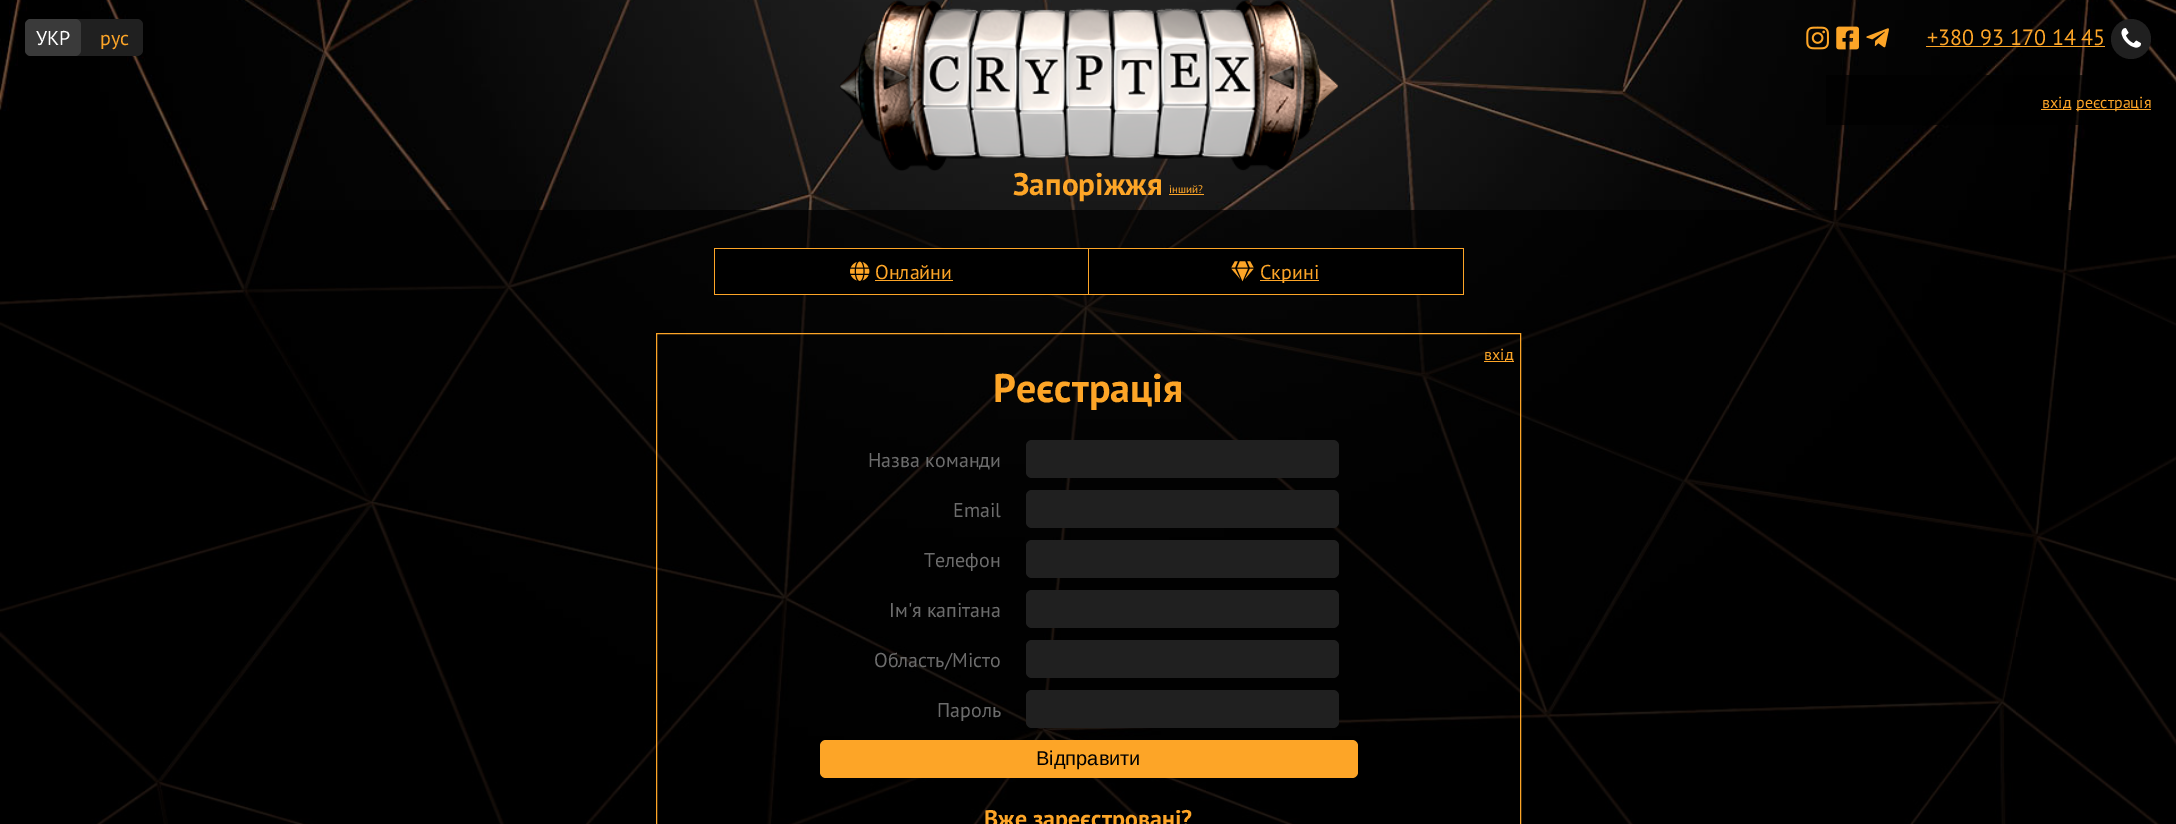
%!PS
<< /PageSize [2176 824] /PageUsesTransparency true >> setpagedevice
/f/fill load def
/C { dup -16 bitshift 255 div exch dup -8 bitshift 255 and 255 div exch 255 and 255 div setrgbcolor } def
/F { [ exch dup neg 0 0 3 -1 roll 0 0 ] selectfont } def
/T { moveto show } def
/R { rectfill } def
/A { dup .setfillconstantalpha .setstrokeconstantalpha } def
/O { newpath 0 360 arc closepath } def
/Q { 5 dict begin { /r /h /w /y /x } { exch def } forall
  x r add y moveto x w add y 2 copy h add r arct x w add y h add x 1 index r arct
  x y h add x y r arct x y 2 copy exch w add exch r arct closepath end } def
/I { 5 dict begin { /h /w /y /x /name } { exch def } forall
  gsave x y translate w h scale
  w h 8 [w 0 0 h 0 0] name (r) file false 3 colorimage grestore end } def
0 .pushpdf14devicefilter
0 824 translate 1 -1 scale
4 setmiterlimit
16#FFFFFF C
0 0 2176 824 R
(1.rgb) 0 0 2176 824 I
16#202020 C
25 19 118 37 6 Q f
16#3A3A3A C
25 19 56 37 6 Q f
/PTSans-Regular 20 F
16#FFFFFF C
(УКР) 36 45 T
16#FDA527 C
(рус) 100 45 T
(2.rgb) 1806 26 23 24 I
(3.rgb) 1836 26 23 24 I
(4.rgb) 1866 28 23 20 I
/PTSans-Regular 22 F
(+380 93 170 14 45) 1927 45 T
1926 46 179 1 R
16#202020 C
2131 39 20 O f
(5.rgb) 2121 28 21 20 I
0.7 A
16#000000 C
1826 75 258 50 R
1 A
16#FDA527 C
2041 109 30 1 R
/PTSans-Regular 16 F
(вхід) 2042 108 T
2076 109 75 1 R
(реєстрація) 2076 108 T
(6.rgb) 839 0 500 171 I
/PTSans-Bold 31.25 F
(Запоріжжя) 1013 195 T
/PTSans-Regular 11 F
(інший?) 1169 193 T
1169 194 35 1 R
0.7 A
16#000000 C
0 210 2176 614 R
1 A
16#FDA527 C
714 248 749 46 R
1463 248 1 47 R
714 294 750 1 R
16#000000 C
715 249 373 45 R
(7.rgb) 850 261 20 20 I
/PTSans-Regular 20 F
16#FDA527 C
(Онлайни) 875 279 T
875 280 78 1 R
16#000000 C
1089 249 374 45 R
(8.rgb) 1231 261 23 21 I
16#FDA527 C
1260 280 59 1 R
(Скрині) 1260 279 T
656.5 333.5 864 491 rectstroke
1484 361 30 1 R
/PTSans-Regular 16 F
(вхід) 1484 360 T
/PTSans-Bold 40 F
(Реєстрація) 993 402 T
/PTSans-Regular 20 F
16#6C6C6C C
(Назва команди) 868 467 T
16#202020 C
1026 440 313 38 6 Q f
16#6C6C6C C
(Email) 953 517 T
16#202020 C
1026 490 313 38 6 Q f
16#6C6C6C C
(Телефон) 924 567 T
16#202020 C
1026 540 313 38 6 Q f
16#6C6C6C C
(Ім'я капітана) 889 617 T
16#202020 C
1026 590 313 38 6 Q f
16#6C6C6C C
(Область/Місто) 874 667 T
16#202020 C
1026 640 313 38 6 Q f
16#6C6C6C C
(Пароль) 937 717 T
16#202020 C
1026 690 313 38 6 Q f
16#FDA527 C
820 740 538 38 6 Q f
/LiberationSans-Regular 20 F
16#000000 C
(Відправити) 1036 765 T
/PTSans-Bold 24 F
16#FDA527 C
(Вже зареєстровані?) 984 827 T
.poppdf14devicefilter showpage
